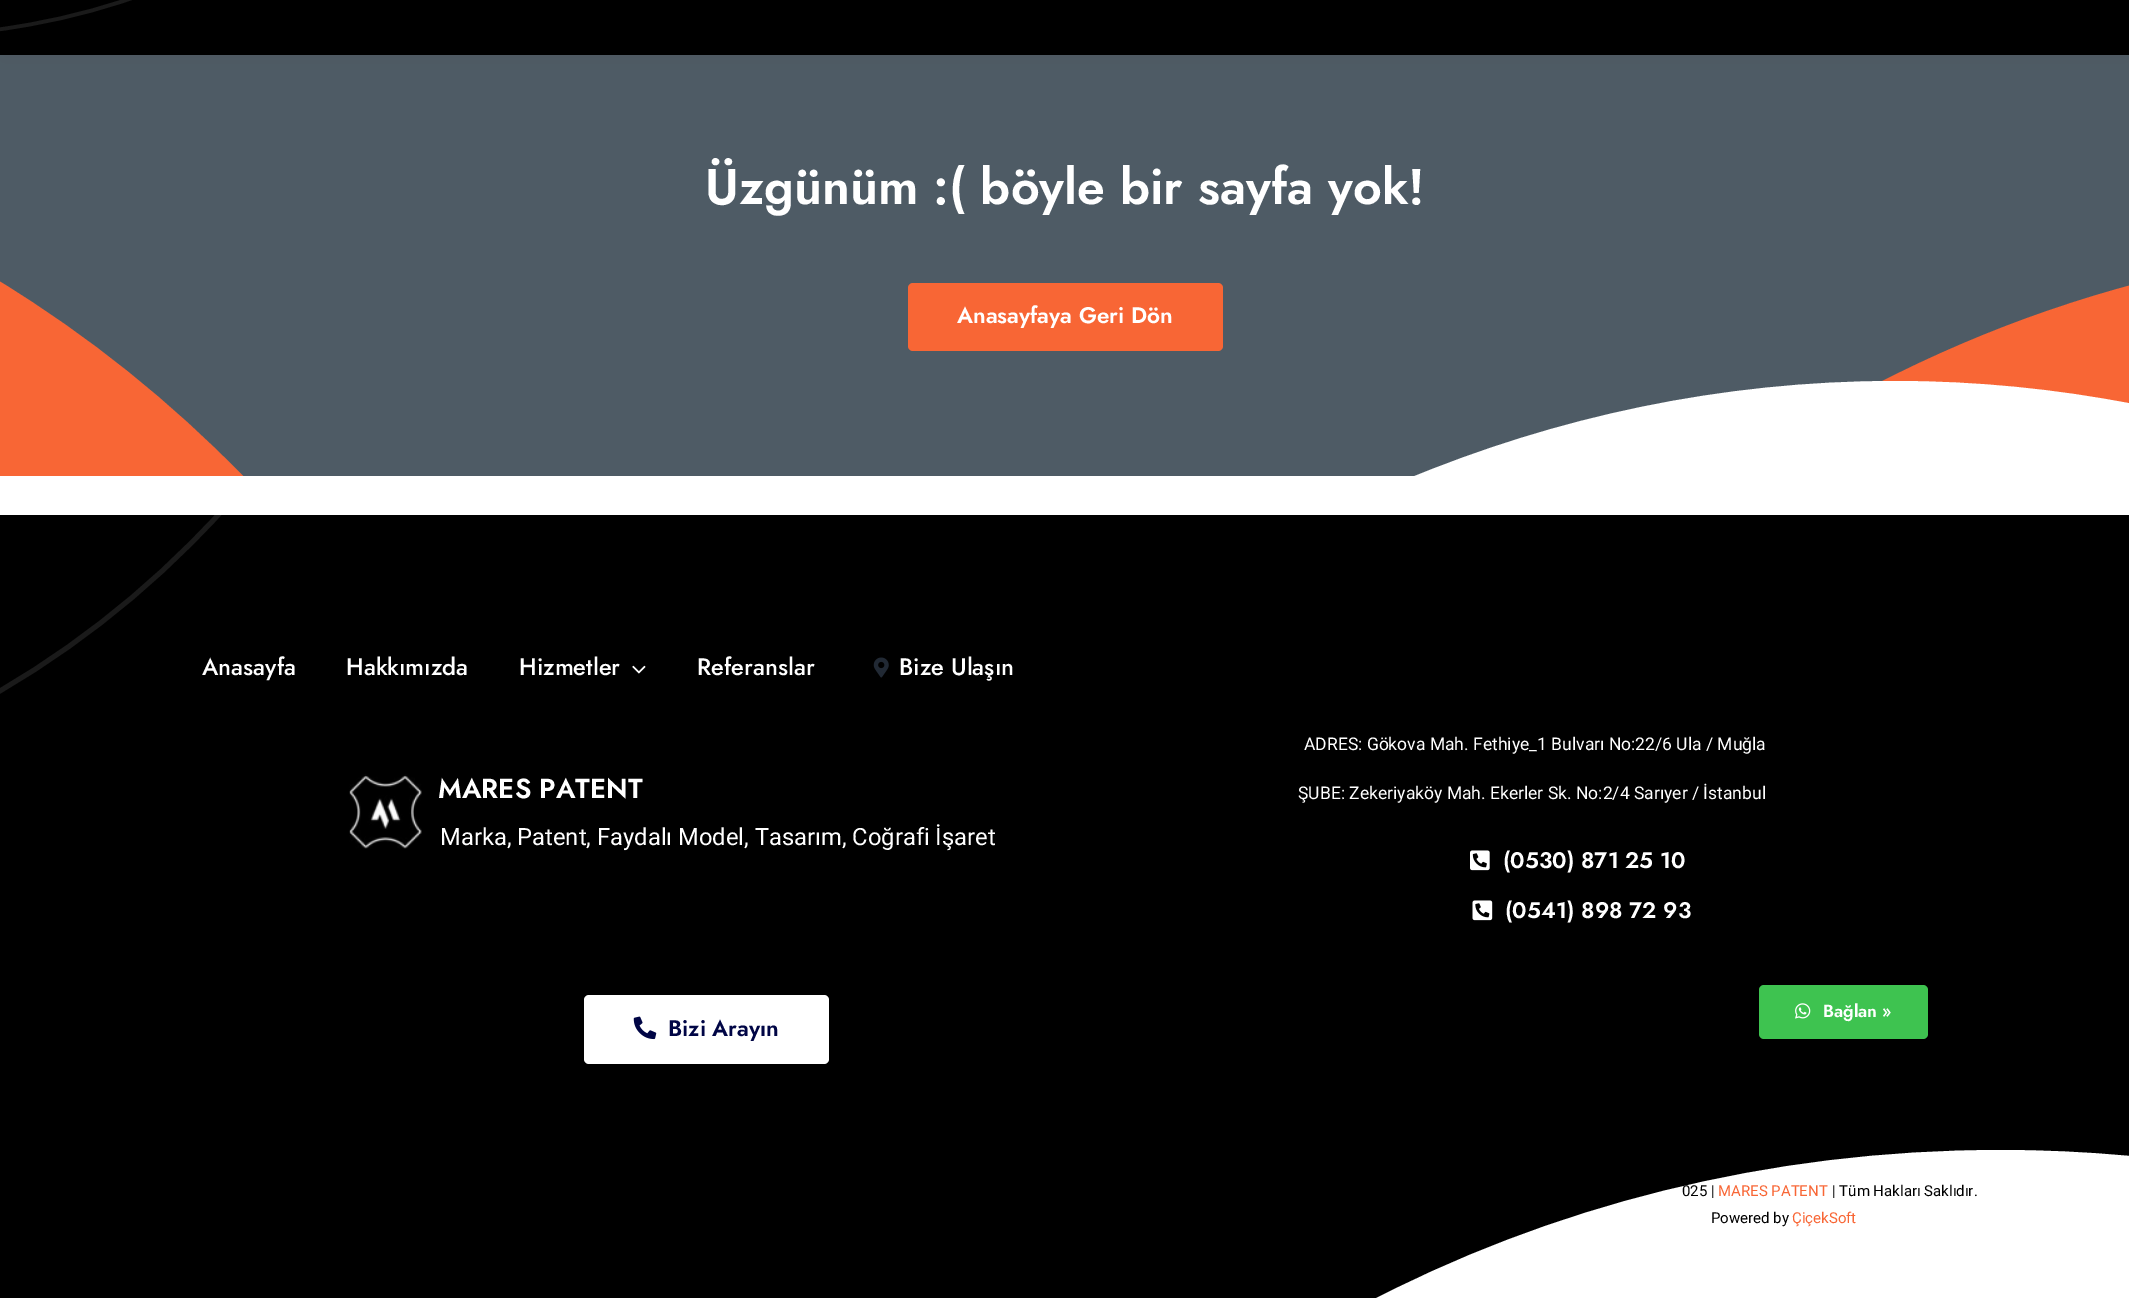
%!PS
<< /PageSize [2129 1298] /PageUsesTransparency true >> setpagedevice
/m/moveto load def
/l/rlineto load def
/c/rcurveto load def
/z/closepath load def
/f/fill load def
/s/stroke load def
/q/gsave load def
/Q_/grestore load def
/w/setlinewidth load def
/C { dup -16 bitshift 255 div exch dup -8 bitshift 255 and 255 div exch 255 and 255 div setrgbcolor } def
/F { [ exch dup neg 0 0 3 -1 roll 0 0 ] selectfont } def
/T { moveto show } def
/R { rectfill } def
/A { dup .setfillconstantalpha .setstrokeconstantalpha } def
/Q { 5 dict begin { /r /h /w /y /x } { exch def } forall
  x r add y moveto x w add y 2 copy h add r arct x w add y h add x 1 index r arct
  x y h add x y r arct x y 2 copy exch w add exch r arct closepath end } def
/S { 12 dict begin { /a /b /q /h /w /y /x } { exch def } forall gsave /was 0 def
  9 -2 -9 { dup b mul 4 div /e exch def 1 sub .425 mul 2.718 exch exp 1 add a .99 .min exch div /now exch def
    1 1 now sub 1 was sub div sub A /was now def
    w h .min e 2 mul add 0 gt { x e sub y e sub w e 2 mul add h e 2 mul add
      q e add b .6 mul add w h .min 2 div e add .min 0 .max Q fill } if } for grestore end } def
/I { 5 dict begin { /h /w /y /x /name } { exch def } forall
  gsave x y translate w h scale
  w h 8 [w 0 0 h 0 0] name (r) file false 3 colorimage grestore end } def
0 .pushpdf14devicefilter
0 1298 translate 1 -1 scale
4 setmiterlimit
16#FFFFFF C
0 0 2129 1298 R
16#4E5B65 C
0 55 2129 421 R
16#5B2D00 C
0 -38 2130 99 0 12.5 .06 S
16#000000 C
0 0 2129 55 R
16#1A1A1A C
3.6 w
-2 29.5 m 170 -22.5 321 -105.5 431 -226.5 c s
16#F86635 C
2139 429 m 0 -146 l -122 32 -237 82 -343 146 c z f
q
0 55 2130 421 rectclip
-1 477 m 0 -196 l 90 55 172 121 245 196 c z f
16#FFFFFF C
1895 381 m -174 0 -339 36 -490 99 c 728 0 l 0 -76 l -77 -15 -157 -23 -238 -23 c z f
Q_
/Jost-SemiBold 50 F
16#FFFFFF C
(Üzgünüm :\( böyle bir sayfa yok!) 705 204 T
16#F86635 C
908 283 315 68 5 Q f
/Jost-SemiBold 22.5 F
16#FFFFFF C
(Anasayfaya Geri Dön) 957 323 T
16#000000 C
0 515 2129 783 R
16#FFFFFF C
2000 1150 m -232 0 -450 56 -641 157 c 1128 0 l 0 -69 l -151 -57 -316 -88 -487 -88 c z f
q
0 515 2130 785 rectclip
16#1A1A1A C
4.8 w
-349 811 m 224 -30 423 -138.5 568.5 -297.5 c s
Q_
/Jost-Medium 23.75 F
(Anasayfa) 202 675 T
(Hakkımızda) 346 675 T
(Hizmetler) 519 675 T
(1.rgb) 632 665 14 9 I
(Referanslar) 697 675 T
(2.rgb) 873 657 16 21 I
(Bize Ulaşın) 899 675 T
(3.rgb) 349 774 73 75 I
/Jost-SemiBold 27.5 F
(MARES PATENT) 438 798 T
/Roboto-Regular 23.75 F
(Marka, Patent, Faydalı Model, Tasarım, Coğrafi İşaret) 440 845 T
584 995 245 69 5 Q f
(4.rgb) 633 1016 24 24 I
/Jost-SemiBold 22.5 F
16#000545 C
(Bizi Arayın) 668 1036 T
/Roboto-Regular 17.5 F
16#FFFFFF C
(ADRES: Gökova Mah. Fethiye_1 Bulvarı No:22/6 Ula / Muğla) 1304 750 T
(ŞUBE: Zekeriyaköy Mah. Ekerler Sk. No:2/4 Sarıyer / İstanbul) 1298 799 T
(5.rgb) 1470 850 20 21 I
/Jost-SemiBold 22.5 F
(\(0530\) 871 25 10) 1503 868 T
(6.rgb) 1472 900 21 21 I
(\(0541\) 898 72 93) 1505 918 T
16#3EC350 C
1759 985 169 54 5 Q f
(7.rgb) 1795 1003 16 16 I
/Jost-SemiBold 17.5 F
16#FFFFFF C
(Bağlan ») 1823 1017 T
/Roboto-Regular 15 F
16#000000 C
(025 |) 1682 1196 T
16#F86635 C
(MARES PATENT) 1718 1196 T
16#000000 C
(| Tüm Hakları Saklıdır.) 1832 1196 T
(Powered by) 1711 1223 T
16#F86635 C
(ÇiçekSoft) 1792 1223 T
.poppdf14devicefilter showpage
